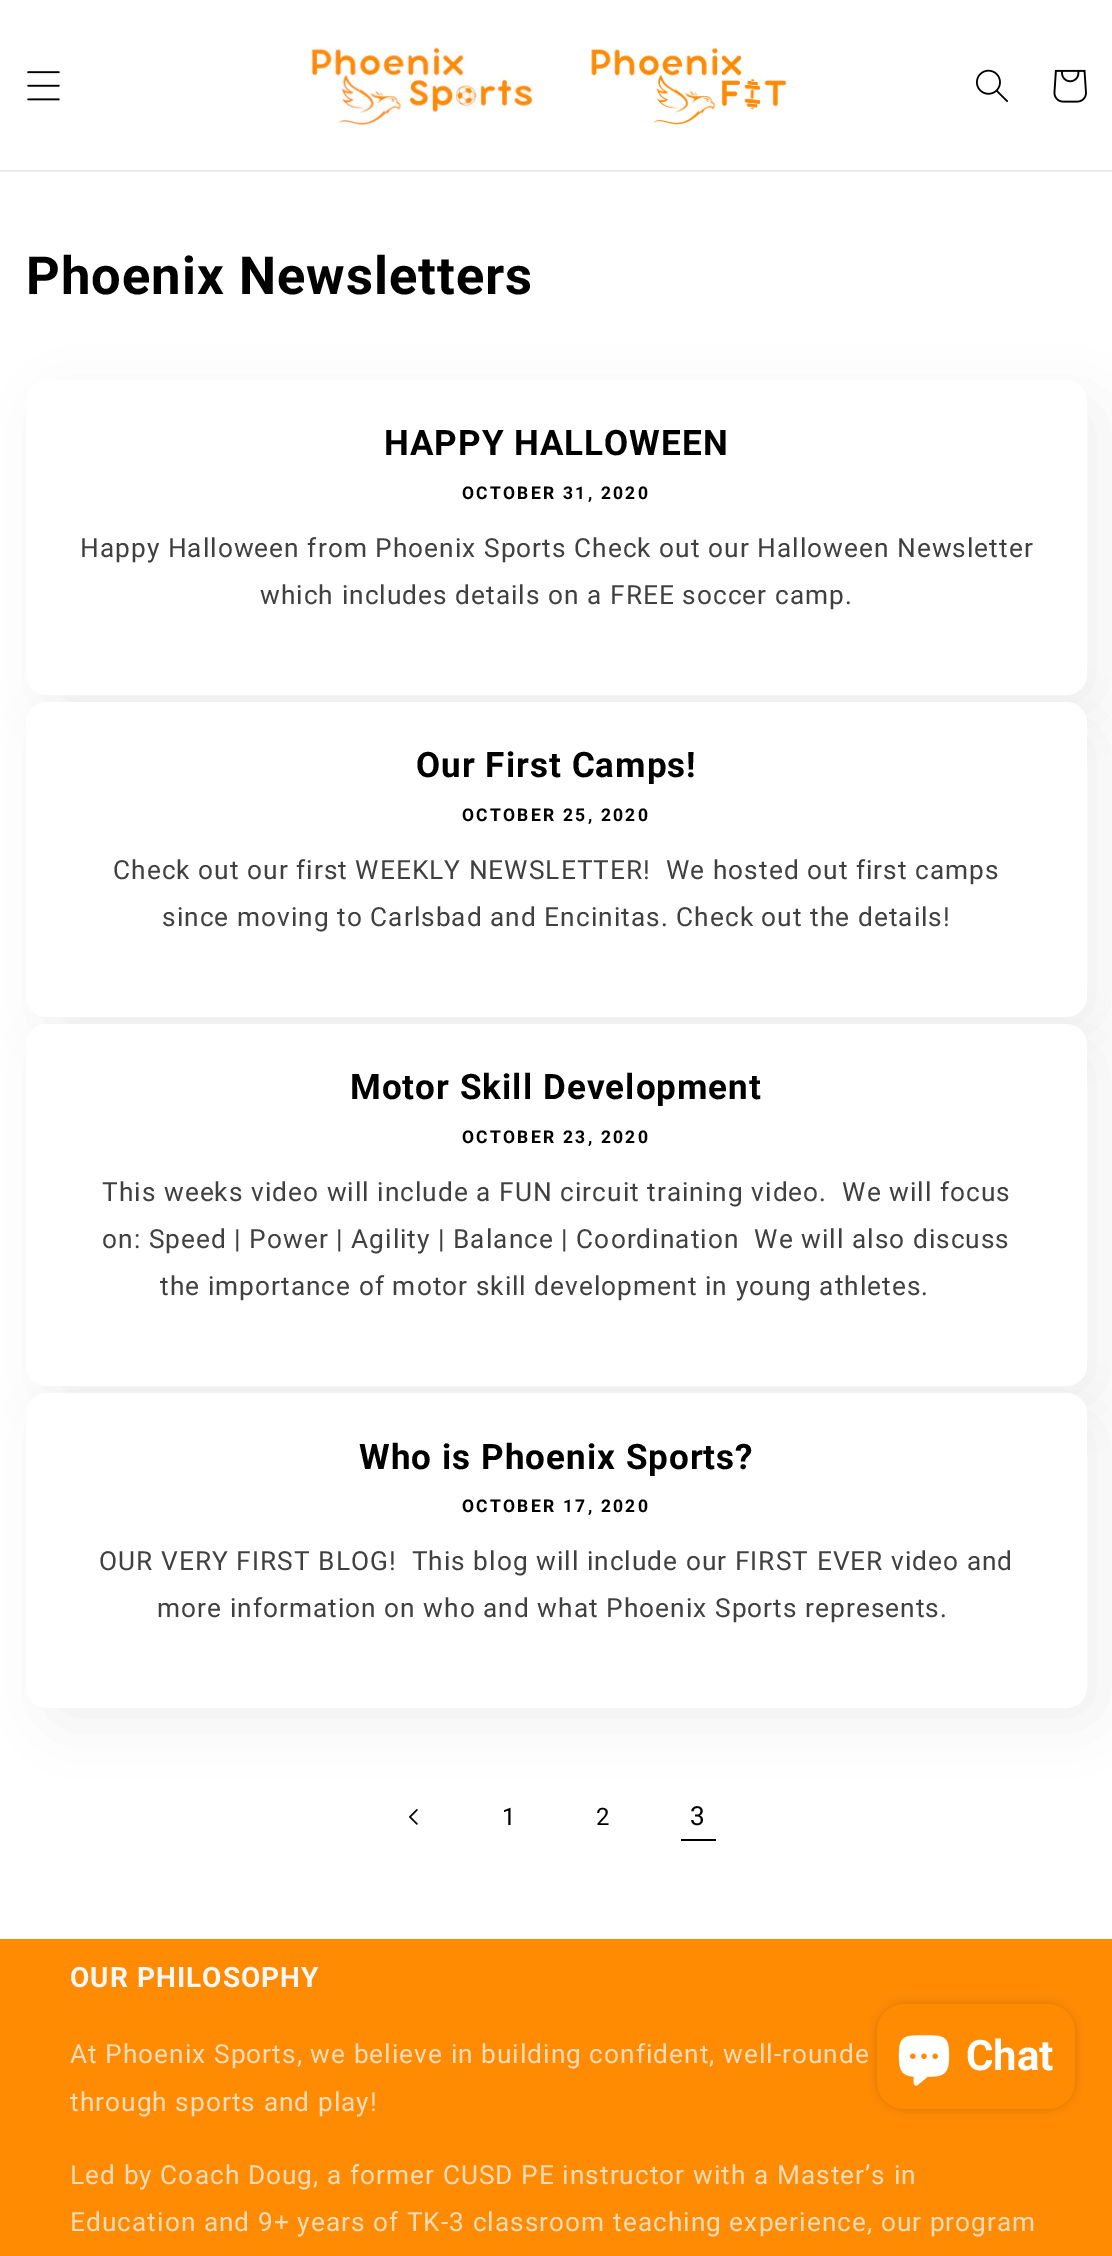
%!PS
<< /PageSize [1112 2256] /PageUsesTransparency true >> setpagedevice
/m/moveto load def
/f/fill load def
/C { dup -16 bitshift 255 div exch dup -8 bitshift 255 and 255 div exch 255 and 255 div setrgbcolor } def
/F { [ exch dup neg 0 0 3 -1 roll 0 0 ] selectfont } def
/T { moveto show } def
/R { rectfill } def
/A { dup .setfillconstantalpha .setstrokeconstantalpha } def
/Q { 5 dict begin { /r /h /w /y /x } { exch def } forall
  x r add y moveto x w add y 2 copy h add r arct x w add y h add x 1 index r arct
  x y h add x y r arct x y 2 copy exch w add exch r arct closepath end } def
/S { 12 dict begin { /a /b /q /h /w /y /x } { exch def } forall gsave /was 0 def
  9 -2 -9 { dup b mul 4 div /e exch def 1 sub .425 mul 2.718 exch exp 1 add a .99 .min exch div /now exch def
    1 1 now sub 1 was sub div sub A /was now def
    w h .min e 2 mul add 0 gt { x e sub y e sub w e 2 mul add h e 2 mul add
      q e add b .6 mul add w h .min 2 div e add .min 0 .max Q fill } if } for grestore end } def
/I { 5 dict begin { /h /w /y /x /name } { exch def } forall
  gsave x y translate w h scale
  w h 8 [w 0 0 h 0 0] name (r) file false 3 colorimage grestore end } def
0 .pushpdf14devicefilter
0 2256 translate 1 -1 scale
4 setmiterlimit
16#FFFFFF C
0 0 1112 2256 R
16#EBEBEB C
0 170 1112 2 R
(1.rgb) 27 71 33 30 I
(2.rgb) 311 46 223 81 I
(3.rgb) 591 47 196 78 I
(4.rgb) 976 69 32 34 I
(5.rgb) 1053 69 34 34 I
/Roboto-Bold 52.5 F
16#000000 C
26 294 m 1.05 0 (Phoenix Newsletters) ashow
44 397 1060 315 21 30.5 .05 S
44 719 1060 315 21 30.5 .05 S
16#FFFFFF C
26 380 1061 315 21 Q f
/Roboto-Bold 35 F
16#000000 C
384 455 m 1.05 0 (HAPPY HALLOWEEN) ashow
/Roboto-Bold 17.5 F
462 499 m 2.25 0 (OCTOBER 31, 2020) ashow
/Roboto-Regular 26.25 F
16#404040 C
80 557 m 1.05 0 (Happy Halloween from Phoenix Sports Check out our Halloween Newsletter) ashow
260 604 m 1.05 0 (which includes details on a FREE soccer camp.) ashow
16#000000 C
44 1041 1060 363 21 30.5 .05 S
16#FFFFFF C
26 702 1061 315 21 Q f
/Roboto-Bold 35 F
16#000000 C
416 777 m 1.05 0 (Our First Camps!) ashow
/Roboto-Bold 17.5 F
462 821 m 2.25 0 (OCTOBER 25, 2020) ashow
/Roboto-Regular 26.25 F
16#404040 C
113 879 m 1.05 0 (Check out our first WEEKLY NEWSLETTER!  We hosted out first camps) ashow
162 926 m 1.05 0 (since moving to Carlsbad and Encinitas. Check out the details!) ashow
16#000000 C
44 1411 1060 315 21 30.5 .05 S
16#FFFFFF C
26 1024 1061 362 21 Q f
/Roboto-Bold 35 F
16#000000 C
350 1099 m 1.05 0 (Motor Skill Development) ashow
/Roboto-Bold 17.5 F
462 1143 m 2.25 0 (OCTOBER 23, 2020) ashow
/Roboto-Regular 26.25 F
16#404040 C
102 1201 m 1.05 0 (This weeks video will include a FUN circuit training video.  We will focus) ashow
102 1248 m 1.05 0 (on: Speed | Power | Agility | Balance | Coordination  We will also discuss) ashow
160 1295 m 1.05 0 (the importance of motor skill development in young athletes.) ashow
16#FFFFFF C
26 1393 1061 315 21 Q f
/Roboto-Bold 35 F
16#000000 C
359 1469 m 1.05 0 (Who is Phoenix Sports?) ashow
/Roboto-Bold 17.5 F
462 1512 m 2.25 0 (OCTOBER 17, 2020) ashow
/Roboto-Regular 26.25 F
16#404040 C
99 1570 m 1.05 0 (OUR VERY FIRST BLOG!  This blog will include our FIRST EVER video and) ashow
157 1617 m 1.05 0 (more information on who and what Phoenix Sports represents.) ashow
(6.rgb) 409 1809 9 16 I
/Roboto-Regular 24 F
16#000000 C
502 1825 m 1.05 0 (1) ashow
596 1825 m 1.05 0 (2) ashow
/Roboto-Regular 26.25 F
690 1825 m 1.05 0 (3) ashow
681 1839 35 2 R
16#FF8B03 C
0 1939 1112 317 R
/Roboto-Bold 28 F
16#F7F7F7 C
70 1987 m 1.05 0 (OUR PHILOSOPHY) ashow
/Roboto-Regular 26.25 F
16#F9DCBA C
70 2063 m 1.05 0 (At Phoenix Sports, we believe in building confident, well-rounde) ashow
70 2111 m 1.05 0 (through sports and play!) ashow
70 2184 m 1.05 0 (Led by Coach Doug, a former CUSD PE instructor with a Master’s in) ashow
70 2231 m 1.05 0 (Education and 9+ years of TK-3 classroom teaching experience, our program) ashow
16#000000 C
877 2004 198 105 28 4.5 .15 S
16#FF8B03 C
877 2004 198 105 28 Q f
(7.rgb) 898 2035 52 51 I
/Roboto-Bold 42 F
16#FFFFFF C
(Chat) 966 2070 T
.poppdf14devicefilter showpage
